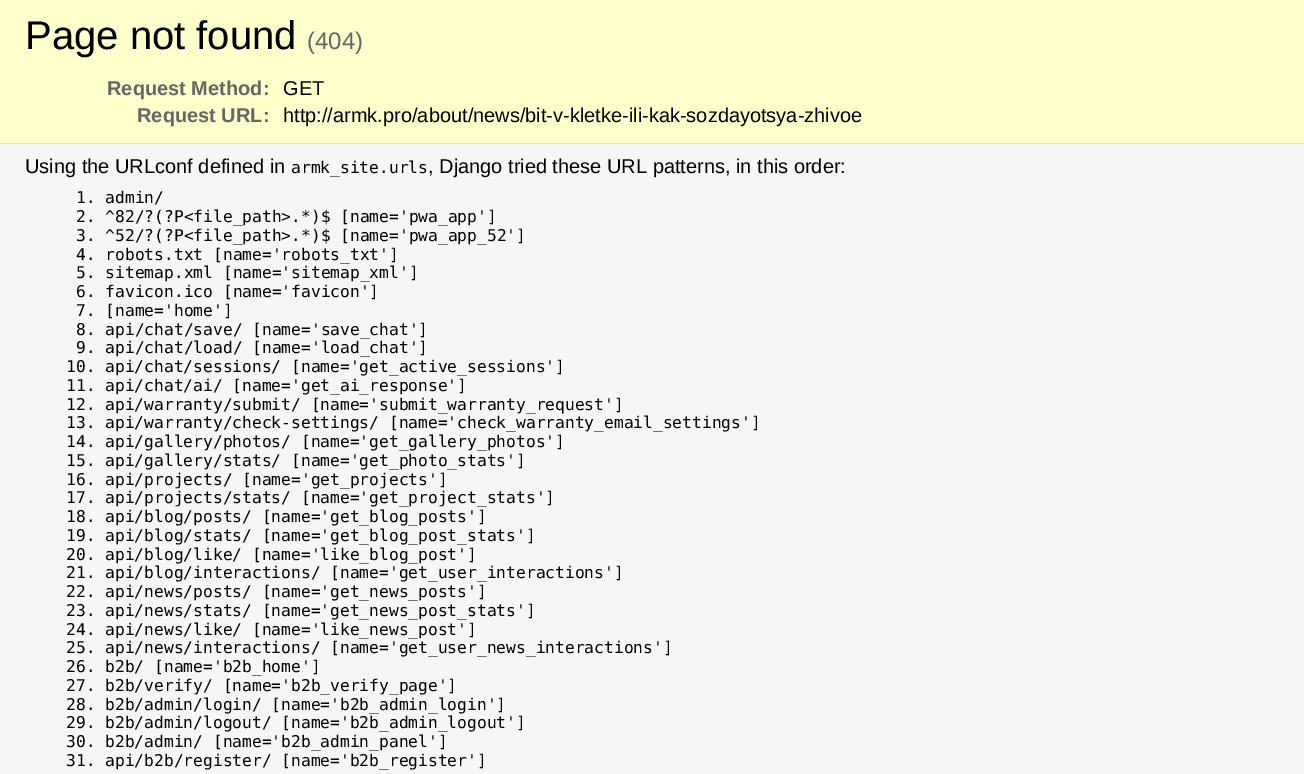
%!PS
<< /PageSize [1304 774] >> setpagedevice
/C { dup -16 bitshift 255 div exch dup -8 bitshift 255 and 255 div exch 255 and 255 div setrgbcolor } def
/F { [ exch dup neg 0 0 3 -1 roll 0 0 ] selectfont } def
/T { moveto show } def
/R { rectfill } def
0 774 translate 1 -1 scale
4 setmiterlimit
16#FFFFCC C
0 0 1304 774 R
16#DDDDDD C
0 143 1304 1 R
/LiberationSans-Regular 40 F
16#000000 C
(Page not found) 25 49 T
/LiberationSans-Regular 24 F
16#666666 C
(\(404\)) 307 49 T
/LiberationSans-Bold 20 F
(Request Method:) 107 95 T
/LiberationSans-Regular 20 F
16#000000 C
(GET) 283 95 T
/LiberationSans-Bold 20 F
16#666666 C
(Request URL:) 137 122 T
/LiberationSans-Regular 20 F
16#000000 C
(http://armk.pro/about/news/bit-v-kletke-ili-kak-sozdayotsya-zhivoe) 283 122 T
16#F6F6F6 C
0 144 1304 630 R
16#000000 C
(Using the URLconf defined in) 25 173 T
/DejaVuSansMono-Regular 16.25 F
(armk_site.urls) 291 173 T
/LiberationSans-Regular 20 F
(, Django tried these URL patterns, in this order:) 428 173 T
/DejaVuSansMono-Regular 16.25 F
(1. admin/) 76 203 T
(2. ^82/?\(?P<file_path>.*\)$ [name='pwa_app']) 76 222 T
(3. ^52/?\(?P<file_path>.*\)$ [name='pwa_app_52']) 76 241 T
(4. robots.txt [name='robots_txt']) 76 260 T
(5. sitemap.xml [name='sitemap_xml']) 76 278 T
(6. favicon.ico [name='favicon']) 76 297 T
(7. [name='home']) 76 316 T
(8. api/chat/save/ [name='save_chat']) 76 335 T
(9. api/chat/load/ [name='load_chat']) 76 353 T
(10. api/chat/sessions/ [name='get_active_sessions']) 66 372 T
(11. api/chat/ai/ [name='get_ai_response']) 66 391 T
(12. api/warranty/submit/ [name='submit_warranty_request']) 66 410 T
(13. api/warranty/check-settings/ [name='check_warranty_email_settings']) 66 428 T
(14. api/gallery/photos/ [name='get_gallery_photos']) 66 447 T
(15. api/gallery/stats/ [name='get_photo_stats']) 66 466 T
(16. api/projects/ [name='get_projects']) 66 485 T
(17. api/projects/stats/ [name='get_project_stats']) 66 503 T
(18. api/blog/posts/ [name='get_blog_posts']) 66 522 T
(19. api/blog/stats/ [name='get_blog_post_stats']) 66 541 T
(20. api/blog/like/ [name='like_blog_post']) 66 560 T
(21. api/blog/interactions/ [name='get_user_interactions']) 66 578 T
(22. api/news/posts/ [name='get_news_posts']) 66 597 T
(23. api/news/stats/ [name='get_news_post_stats']) 66 616 T
(24. api/news/like/ [name='like_news_post']) 66 635 T
(25. api/news/interactions/ [name='get_user_news_interactions']) 66 653 T
(26. b2b/ [name='b2b_home']) 66 672 T
(27. b2b/verify/ [name='b2b_verify_page']) 66 691 T
(28. b2b/admin/login/ [name='b2b_admin_login']) 66 710 T
(29. b2b/admin/logout/ [name='b2b_admin_logout']) 66 728 T
(30. b2b/admin/ [name='b2b_admin_panel']) 66 747 T
(31. api/b2b/register/ [name='b2b_register']) 66 766 T
showpage
